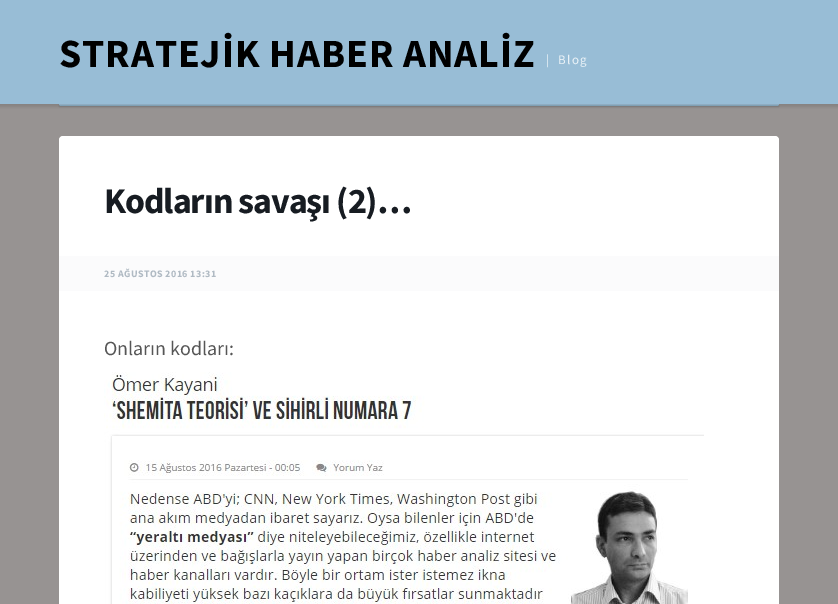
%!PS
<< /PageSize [838 604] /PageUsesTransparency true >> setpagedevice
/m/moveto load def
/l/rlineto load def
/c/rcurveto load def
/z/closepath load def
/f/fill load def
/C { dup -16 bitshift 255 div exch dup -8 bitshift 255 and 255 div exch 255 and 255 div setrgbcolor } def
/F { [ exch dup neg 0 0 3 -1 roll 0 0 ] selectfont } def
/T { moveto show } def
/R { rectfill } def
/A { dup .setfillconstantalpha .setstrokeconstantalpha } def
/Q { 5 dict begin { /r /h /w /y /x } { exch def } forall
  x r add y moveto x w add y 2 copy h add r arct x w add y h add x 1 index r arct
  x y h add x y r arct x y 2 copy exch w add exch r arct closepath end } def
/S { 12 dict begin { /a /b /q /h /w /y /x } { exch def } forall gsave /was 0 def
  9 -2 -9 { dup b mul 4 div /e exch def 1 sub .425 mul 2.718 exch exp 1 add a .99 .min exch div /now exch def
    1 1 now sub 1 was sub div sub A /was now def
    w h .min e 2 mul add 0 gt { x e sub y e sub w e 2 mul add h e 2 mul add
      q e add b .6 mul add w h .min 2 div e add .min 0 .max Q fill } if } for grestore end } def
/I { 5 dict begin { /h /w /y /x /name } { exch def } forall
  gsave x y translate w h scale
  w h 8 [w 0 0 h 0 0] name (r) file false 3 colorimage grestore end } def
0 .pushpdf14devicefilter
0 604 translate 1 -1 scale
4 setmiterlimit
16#979392 C
0 0 838 604 R
16#000000 C
59 105 720 2 2 .5 .1 S
16#98BDD6 C
59 104 m 720 0 l 0 1 -1 2 -2 2 c -716 0 l -1 0 -2 -1 -2 -2 c z f
0.1 A
16#DCDCDC C
59 104 m 720 0 l 0 1 l 0 -1 l 0 1 -1 1 -2 1 c -716 0 l -1 0 -2 0 -2 -1 c z 59 105 m 0 -1 l z eofill
0.07 A
16#000000 C
61 106 m 716 0 l 2 -1 l -720 0 l z f
1 A
-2 -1 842 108 0 1 .1 S
16#98BDD6 C
0 0 838 104 R
/SourceSansPro-Bold 40 F
16#000000 C
59 67 m .9 0 (STRATEJİK HABER ANALİZ) ashow
/SourceSansPro-Regular 13 F
16#EAF2F7 C
546 64 m 1.5 0 (|) ashow
558 64 m 1.5 0 (Blog) ashow
16#FFFFFF C
59 136 720 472 4 Q f
/SourceSansPro-Bold 36 F
16#171C22 C
104 213 m -1.1 0 (Kodların savaşı \(2\)…) ashow
16#FBFBFC C
59 256 720 35 R
/SourceSansPro-Bold 10 F
16#B0BAC3 C
104 277 m .4 0 (25 AĞUSTOS 2016 13:31) ashow
/SourceSansPro-Regular 20 F
16#565656 C
(Onların kodları:) 104 355 T
(1.rgb) 104 372 600 232 I
.poppdf14devicefilter showpage
